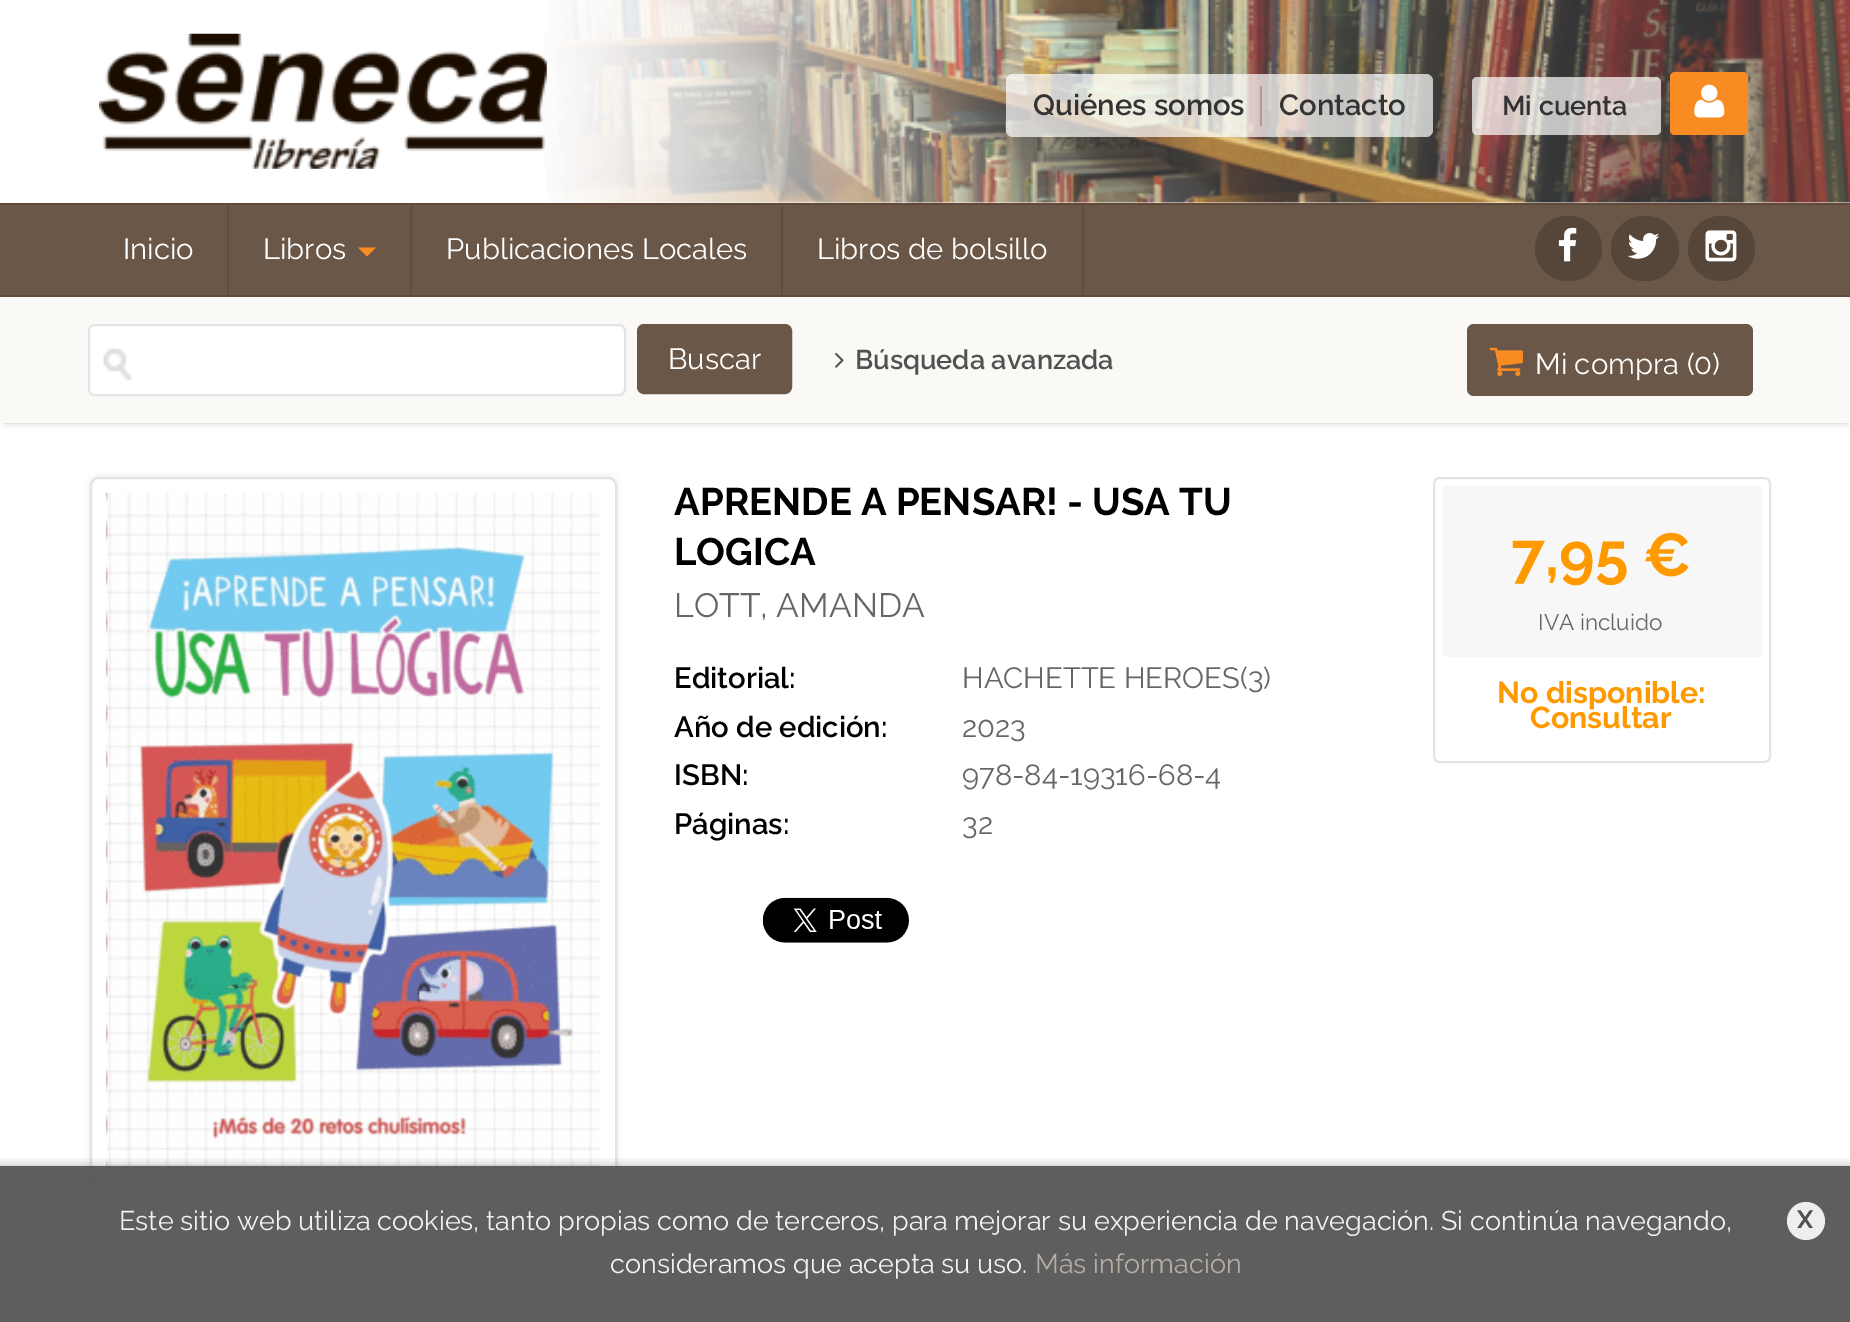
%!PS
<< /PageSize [1850 1322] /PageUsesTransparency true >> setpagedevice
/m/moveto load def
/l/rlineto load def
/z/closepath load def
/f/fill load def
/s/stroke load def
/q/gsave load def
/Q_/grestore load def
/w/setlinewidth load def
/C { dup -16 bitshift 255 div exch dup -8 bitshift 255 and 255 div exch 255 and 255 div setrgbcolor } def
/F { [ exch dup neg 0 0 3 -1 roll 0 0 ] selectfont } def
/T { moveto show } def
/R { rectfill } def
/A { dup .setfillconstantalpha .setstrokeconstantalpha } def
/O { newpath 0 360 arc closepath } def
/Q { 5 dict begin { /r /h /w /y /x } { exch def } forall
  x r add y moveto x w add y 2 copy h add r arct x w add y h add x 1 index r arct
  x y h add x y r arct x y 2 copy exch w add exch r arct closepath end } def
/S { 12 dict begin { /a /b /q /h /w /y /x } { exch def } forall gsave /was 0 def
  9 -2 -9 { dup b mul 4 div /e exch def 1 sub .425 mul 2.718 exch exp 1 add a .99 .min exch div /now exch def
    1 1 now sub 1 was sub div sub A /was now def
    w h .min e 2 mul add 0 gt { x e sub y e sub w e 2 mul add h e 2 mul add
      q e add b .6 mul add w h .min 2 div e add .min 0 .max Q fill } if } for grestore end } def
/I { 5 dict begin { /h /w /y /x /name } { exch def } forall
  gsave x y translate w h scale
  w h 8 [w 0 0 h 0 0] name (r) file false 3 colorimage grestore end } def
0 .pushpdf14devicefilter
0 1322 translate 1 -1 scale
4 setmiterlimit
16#FFFFFF C
0 0 1850 1322 R
(1.rgb) 546 0 1304 203 I
(2.rgb) 99 33 448 136 I
0.7 A
1006 74 427 63 7 Q f
0.25 A
16#331803 C
1260 86 2 40 R
/Raleway-SemiBold 29.25 F
1 A
16#333333 C
(Quiénes somos) 1033 115 T
(Contacto) 1279 115 T
0.7 A
16#FFFFFF C
1472 77 189 58 5 Q f
/Raleway-SemiBold 27 F
1 A
16#333333 C
(Mi cuenta) 1502 115 T
16#F98B23 C
1670 72 78 63 5 Q f
(3.rgb) 1694 84 31 34 I
16#6A5747 C
0 205 1850 90 R
16#604939 C
0 203 1850 2 R
0 295 1850 2 R
16#5F4E40 C
227 205 2 90 R
/Raleway-Regular 29.25 F
16#FFFFFF C
(Inicio) 123 259 T
16#5F4E40 C
410 205 2 90 R
16#FFFFFF C
(Libros) 263 259 T
16#F98B23 C
358 247.5 m 18 0 l -9 9 l z f
16#5F4E40 C
781 205 2 90 R
16#FFFFFF C
(Publicaciones Locales) 446 259 T
16#5F4E40 C
1082 205 2 90 R
16#FFFFFF C
(Libros de bolsillo) 817 259 T
16#554639 C
1535 216 67 65 32.5 Q f
(4.rgb) 1558 227 19 35 I
1611 216 68 65 32.5 Q f
(5.rgb) 1627 233 33 26 I
1688 216 67 65 32.5 Q f
(6.rgb) 1705 230 32 32 I
16#000000 C
5 306 1842 117 0 3.5 .2 S
16#FAF9F6 C
0 297 1850 126 R
16#FFFFFF C
88 324 538 72 7 Q f
(7.rgb) 103 348 29 33 I
16#E4E4E4 C
2 w
89 325 536 70 6 Q s
16#6A5747 C
638 325 153 68 6 Q q f Q_
s
16#FFFFFF C
(Buscar) 668 369 T
(8.rgb) 835 352 9 16 I
/Raleway-SemiBold 27 F
16#515151 C
(Búsqueda avanzada) 855 369 T
16#6A5747 C
1467 324 286 72 7 Q f
(9.rgb) 1489 347 34 29 I
/Raleway-Regular 29.25 F
16#FFFFFF C
(Mi compra \(0\)) 1535 374 T
16#000000 C
90 477 527 707 9 3.5 .1 S
16#FFFFFF C
91 478 525 705 8 Q q f Q_
16#E3E3E3 C
s
(10.rgb) 105 492 496 676 I
/Raleway-Bold 38.25 F
16#000000 C
(APRENDE A PENSAR! - USA TU) 674 515 T
(LOGICA) 674 565 T
/Raleway-Regular 33.75 F
16#666666 C
(LOTT, AMANDA) 674 617 T
/Raleway-SemiBold 29.25 F
16#000000 C
(Editorial:) 674 688 T
/Raleway-Regular 29.25 F
16#666666 C
(HACHETTE HEROES\(3\)) 962 688 T
/Raleway-SemiBold 29.25 F
16#000000 C
(Año de edición:) 674 737 T
/Raleway-Regular 29.25 F
16#666666 C
(2023) 962 737 T
/Raleway-SemiBold 29.25 F
16#000000 C
(ISBN:) 674 785 T
/Raleway-Regular 29.25 F
16#666666 C
(978-84-19316-68-4) 962 785 T
/Raleway-SemiBold 29.25 F
16#000000 C
(Páginas:) 674 834 T
/Raleway-Regular 29.25 F
16#666666 C
(32) 962 834 T
(11.rgb) 762 897 147 46 I
16#E3E3E3 C
1434 478 336 284 6 Q s
16#F7F7F7 C
1442 486 320 171 5 Q f
/Raleway-Bold 60.5 F
16#FF9900 C
(7,95 €) 1511 576 T
/Raleway-Regular 22.5 F
16#666666 C
(IVA incluido) 1538 630 T
/Raleway-Bold 30.25 F
16#FF9900 C
(No disponible:) 1497 703 T
(Consultar) 1530 728 T
16#EAEAEA C
295 1321 1476 1 R
83 1256 212 2 R
293 1256 2 66 R
16#FDFDFD C
293 1321 2 1 R
q
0 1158 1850 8 rectclip
16#000000 C
0 1166 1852 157 0 5.5 .3 S
Q_
0.95 A
16#555555 C
0 1166 1850 156 R
/Raleway-Regular 27 F
1 A
16#F2F2F2 C
(Este sitio web utiliza cookies, tanto propias como de terceros, para mejorar su experiencia de navegación. Si continúa navegando,) 119 1230 T
16#EEEEEE C
1806 1221 19 O f
/Raleway-Bold 25 F
16#515151 C
(X) 1797 1228 T
/Raleway-Regular 27 F
16#F2F2F2 C
(consideramos que acepta su uso.) 610 1273 T
16#B5ACA4 C
(Más información) 1035 1273 T
.poppdf14devicefilter showpage
